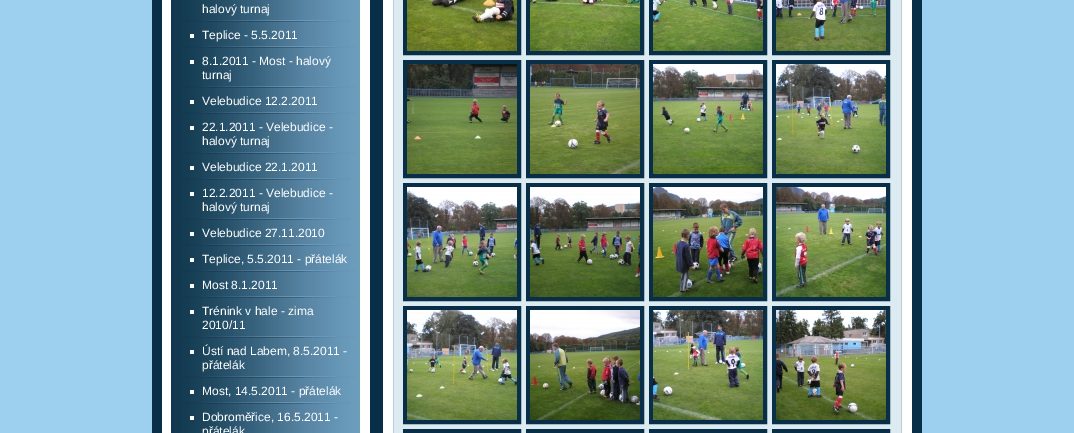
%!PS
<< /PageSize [1074 433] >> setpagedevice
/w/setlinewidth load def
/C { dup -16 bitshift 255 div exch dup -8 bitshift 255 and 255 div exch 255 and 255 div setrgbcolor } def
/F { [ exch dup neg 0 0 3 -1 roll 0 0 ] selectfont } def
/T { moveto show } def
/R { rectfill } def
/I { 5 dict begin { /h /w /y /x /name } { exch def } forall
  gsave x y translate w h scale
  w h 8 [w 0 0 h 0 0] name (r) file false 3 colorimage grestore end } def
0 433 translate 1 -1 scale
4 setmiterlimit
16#9DD0EF C
0 0 1074 433 R
16#082F47 C
152 0 770 433 R
(1.rgb) 162 0 208 433 I
(2.rgb) 180 20 175 2 I
/LiberationSans-Regular 12 F
16#FFFFFF C
(halový turnaj) 202 13 T
190 34 4 4 R
(2.rgb) 180 46 175 2 I
(Teplice - 5.5.2011) 202 39 T
190 60 4 4 R
(2.rgb) 180 86 175 2 I
(8.1.2011 - Most - halový) 202 65 T
(turnaj) 202 79 T
190 100 4 4 R
(2.rgb) 180 112 175 2 I
(Velebudice 12.2.2011) 202 105 T
190 126 4 4 R
(2.rgb) 180 152 175 2 I
(22.1.2011 - Velebudice -) 202 131 T
(halový turnaj) 202 145 T
190 166 4 4 R
(2.rgb) 180 178 175 2 I
(Velebudice 22.1.2011) 202 171 T
190 192 4 4 R
(2.rgb) 180 218 175 2 I
(12.2.2011 - Velebudice -) 202 197 T
(halový turnaj) 202 211 T
190 232 4 4 R
(2.rgb) 180 244 175 2 I
(Velebudice 27.11.2010) 202 237 T
190 258 4 4 R
(2.rgb) 180 270 175 2 I
(Teplice, 5.5.2011 - přátelák) 202 263 T
190 284 4 4 R
(2.rgb) 180 296 175 2 I
(Most 8.1.2011) 202 289 T
190 310 4 4 R
(2.rgb) 180 336 175 2 I
(Trénink v hale - zima) 202 315 T
(2010/11) 202 329 T
190 350 4 4 R
(2.rgb) 180 376 175 2 I
(Ústí nad Labem, 8.5.2011 -) 202 355 T
(přátelák) 202 369 T
190 390 4 4 R
(2.rgb) 180 402 175 2 I
(Most, 14.5.2011 - přátelák) 202 395 T
190 416 4 4 R
(Dobroměřice, 16.5.2011 -) 202 421 T
(přátelák) 202 435 T
(3.rgb) 383 0 529 433 I
16#082F47 C
4 w
405 -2 114 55 rectstroke
(4.rgb) 407 0 110 51 I
528 -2 114 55 rectstroke
(5.rgb) 530 0 110 51 I
651 -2 114 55 rectstroke
(6.rgb) 653 0 110 51 I
774 -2 114 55 rectstroke
(7.rgb) 776 0 110 51 I
405 62 114 114 rectstroke
(8.rgb) 407 64 110 110 I
528 62 114 114 rectstroke
(9.rgb) 530 64 110 110 I
651 62 114 114 rectstroke
(10.rgb) 653 64 110 110 I
774 62 114 114 rectstroke
(11.rgb) 776 64 110 110 I
405 185 114 114 rectstroke
(12.rgb) 407 187 110 110 I
528 185 114 114 rectstroke
(13.rgb) 530 187 110 110 I
651 185 114 114 rectstroke
(14.rgb) 653 187 110 110 I
774 185 114 114 rectstroke
(15.rgb) 776 187 110 110 I
405 308 114 114 rectstroke
(16.rgb) 407 310 110 110 I
528 308 114 114 rectstroke
(17.rgb) 530 310 110 110 I
651 308 114 114 rectstroke
(18.rgb) 653 310 110 110 I
774 308 114 114 rectstroke
(19.rgb) 776 310 110 110 I
405 431 114 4 rectstroke
528 431 114 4 rectstroke
651 431 114 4 rectstroke
774 431 114 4 rectstroke
showpage
